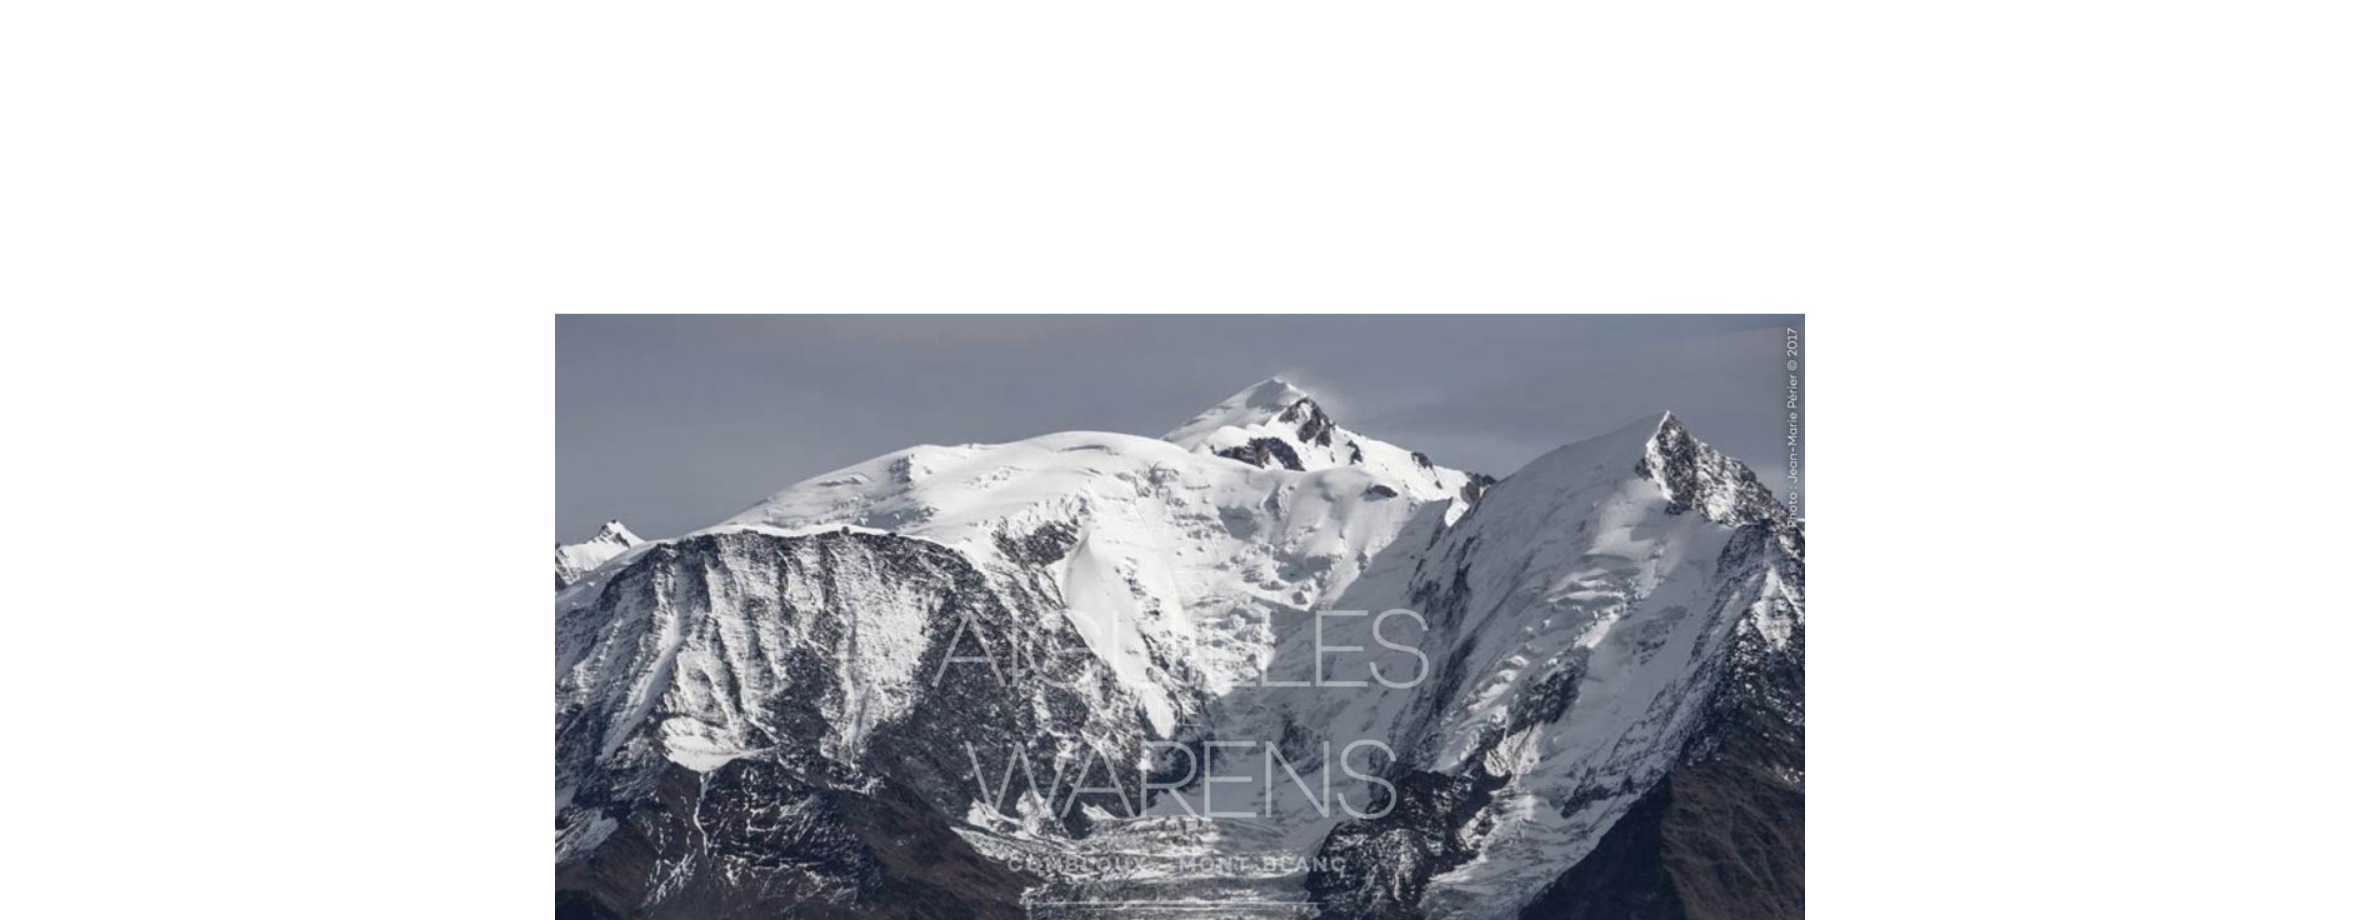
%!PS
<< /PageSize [2360 920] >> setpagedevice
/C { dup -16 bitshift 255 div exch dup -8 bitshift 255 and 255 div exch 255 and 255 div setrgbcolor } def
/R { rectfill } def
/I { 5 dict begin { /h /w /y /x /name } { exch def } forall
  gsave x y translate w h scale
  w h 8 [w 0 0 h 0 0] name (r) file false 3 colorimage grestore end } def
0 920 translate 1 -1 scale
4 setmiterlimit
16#FFFFFF C
0 0 2360 920 R
(1.rgb) 555 313 1250 607 I
showpage
